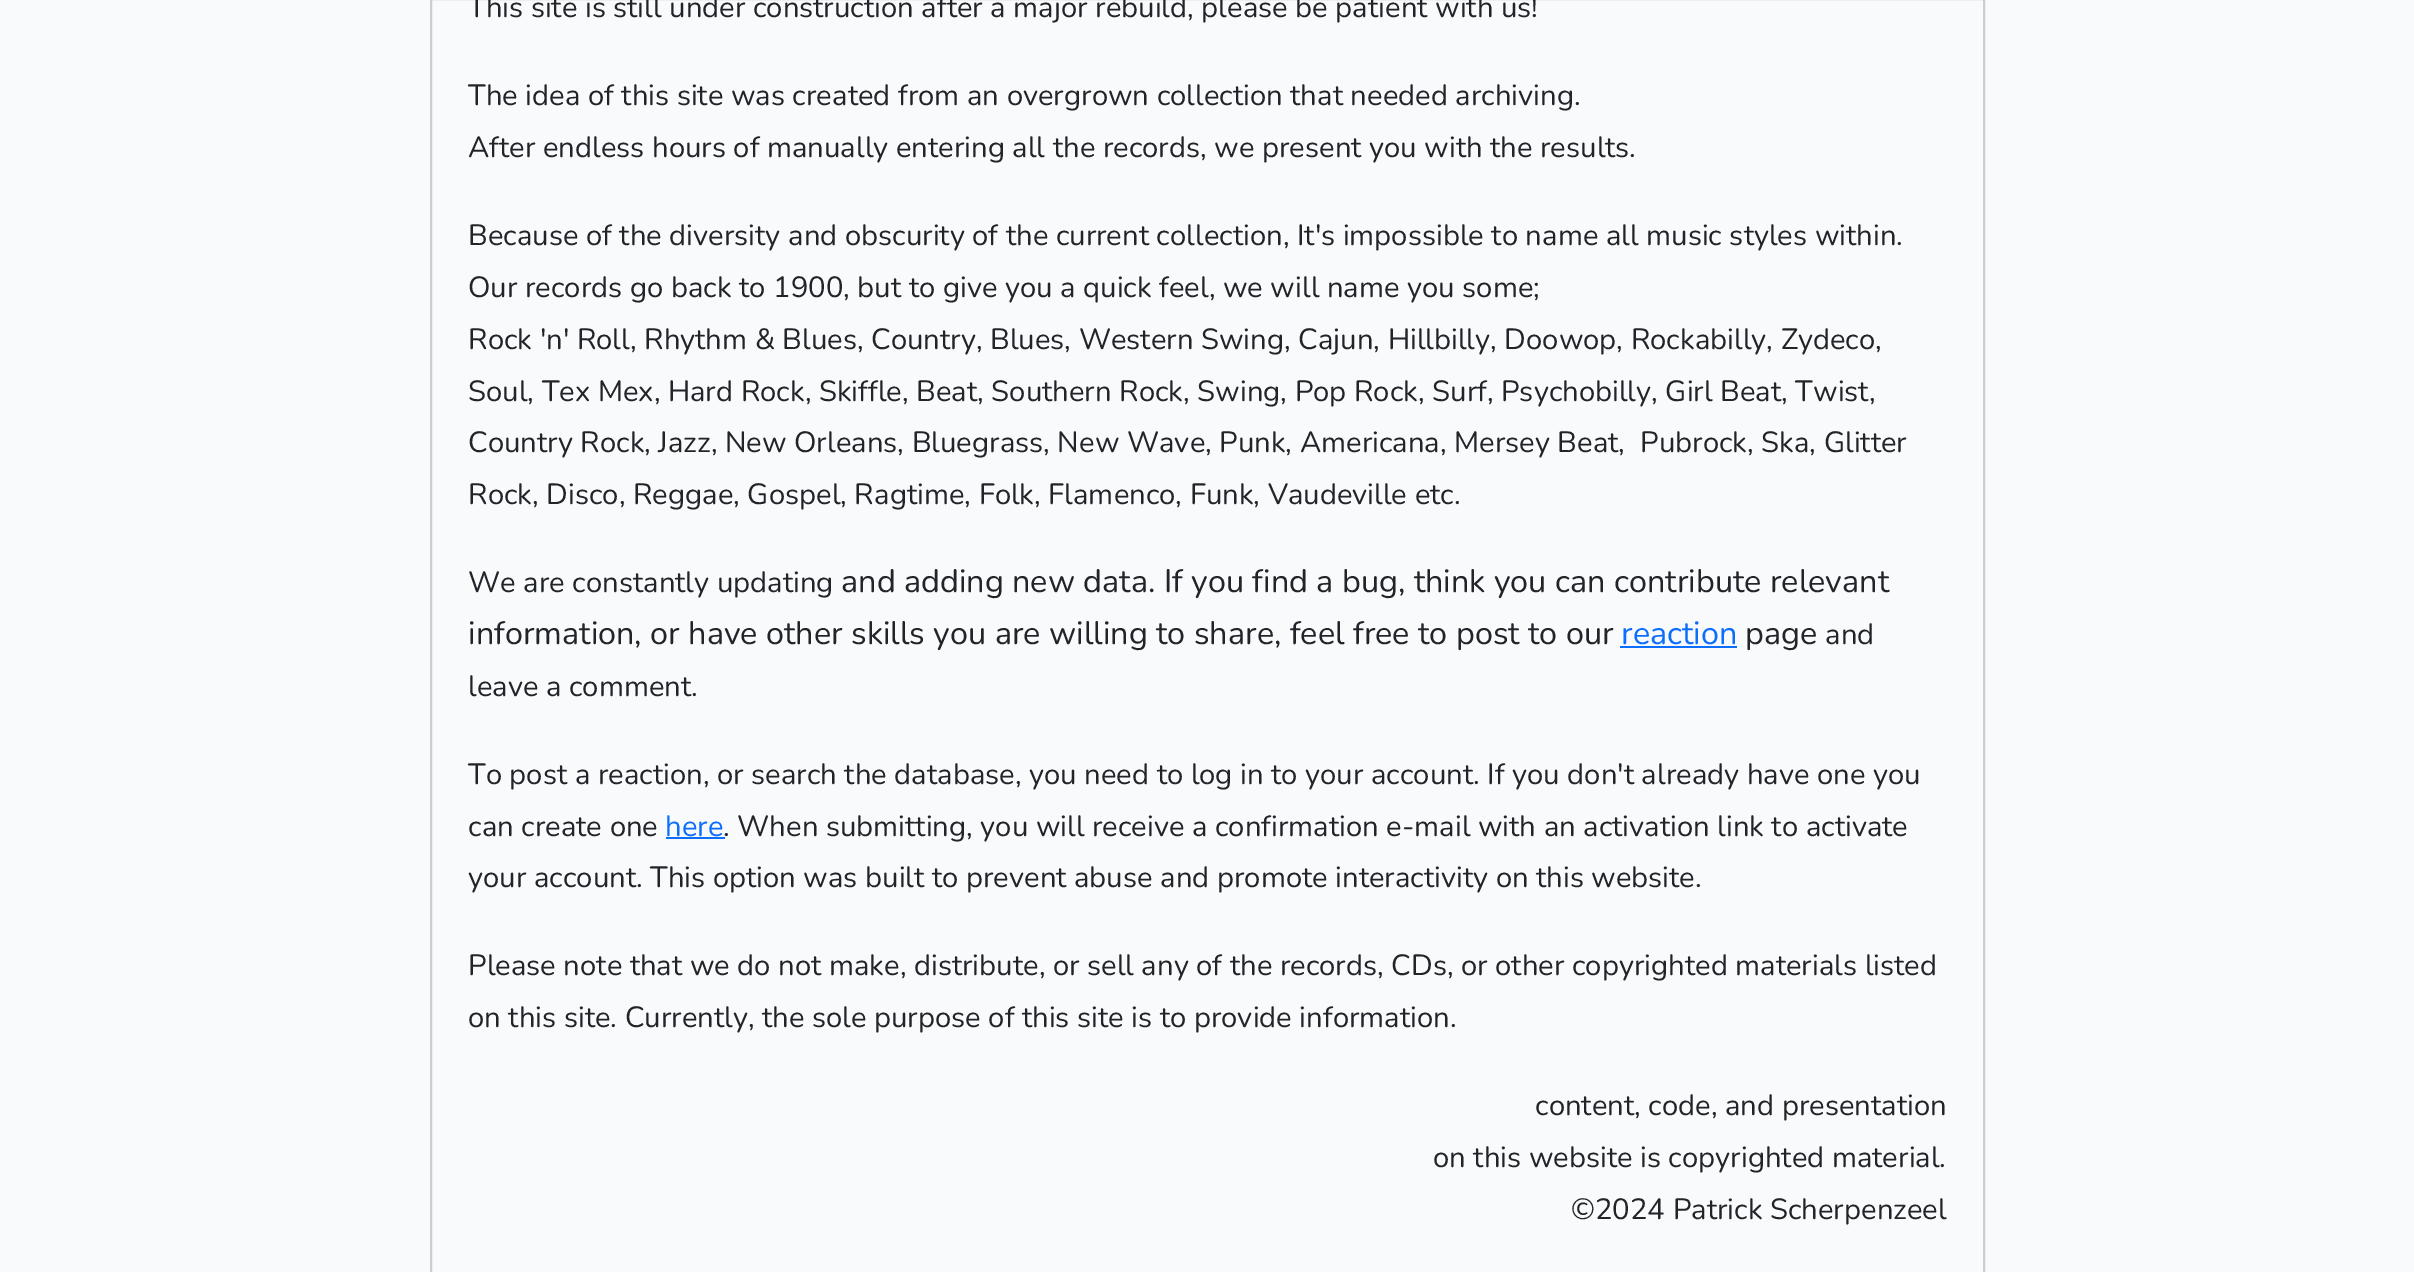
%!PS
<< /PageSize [2414 1272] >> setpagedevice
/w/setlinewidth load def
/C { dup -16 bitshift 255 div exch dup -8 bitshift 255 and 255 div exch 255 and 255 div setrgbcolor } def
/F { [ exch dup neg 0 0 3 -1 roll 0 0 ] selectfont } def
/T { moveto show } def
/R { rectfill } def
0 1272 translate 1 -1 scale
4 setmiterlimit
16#F8FAFC C
0 0 2414 1272 R
16#CCCED0 C
2 w
431 -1 1553 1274 rectstroke
/Nunito-ExtraLight 29.25 F
16#212529 C
(This site is still under construction after a major rebuild, please be patient with us!) 468 17 T
(The idea of this site was created from an overgrown collection that needed archiving.) 468 105 T
(After endless hours of manually entering all the records, we present you with the results.) 468 157 T
(Because of the diversity and obscurity of the current collection, It's impossible to name all music styles within.) 468 245 T
(Our records go back to 1900, but to give you a quick feel, we will name you some;) 468 297 T
(Rock 'n' Roll, Rhythm & Blues, Country, Blues, Western Swing, Cajun, Hillbilly, Doowop, Rockabilly, Zydeco,) 468 349 T
(Soul, Tex Mex, Hard Rock, Skiffle, Beat, Southern Rock, Swing, Pop Rock, Surf, Psychobilly, Girl Beat, Twist,) 468 401 T
(Country Rock, Jazz, New Orleans, Bluegrass, New Wave, Punk, Americana, Mersey Beat,  Pubrock, Ska, Glitter) 468 452 T
(Rock, Disco, Reggae, Gospel, Ragtime, Folk, Flamenco, Funk, Vaudeville etc.) 468 504 T
(We are constantly updating) 468 592 T
/Nunito-ExtraLight 32.4 F
(and adding new data. If you find a bug, think you can contribute relevant) 841 592 T
(information, or have other skills you are willing to share, feel free to post to our) 468 644 T
16#0D6EFD C
(reaction) 1621 644 T
16#212529 C
(page) 1745 644 T
16#0D6EFD C
1620 646 117 2 R
/Nunito-ExtraLight 29.25 F
16#212529 C
(and) 1825 644 T
(leave a comment.) 468 696 T
(To post a reaction, or search the database, you need to log in to your account. If you don't already have one you) 468 784 T
(can create one) 468 836 T
16#0D6EFD C
(here) 665 836 T
16#212529 C
(. When submitting, you will receive a confirmation e-mail with an activation link to activate) 723 836 T
16#0D6EFD C
666 837 59 2 R
16#212529 C
(your account. This option was built to prevent abuse and promote interactivity on this website.) 468 887 T
(Please note that we do not make, distribute, or sell any of the records, CDs, or other copyrighted materials listed) 468 975 T
(on this site. Currently, the sole purpose of this site is to provide information.) 468 1027 T
(content, code, and presentation) 1535 1115 T
(on this website is copyrighted material.) 1433 1167 T
(©2024 Patrick Scherpenzeel) 1571 1219 T
showpage
